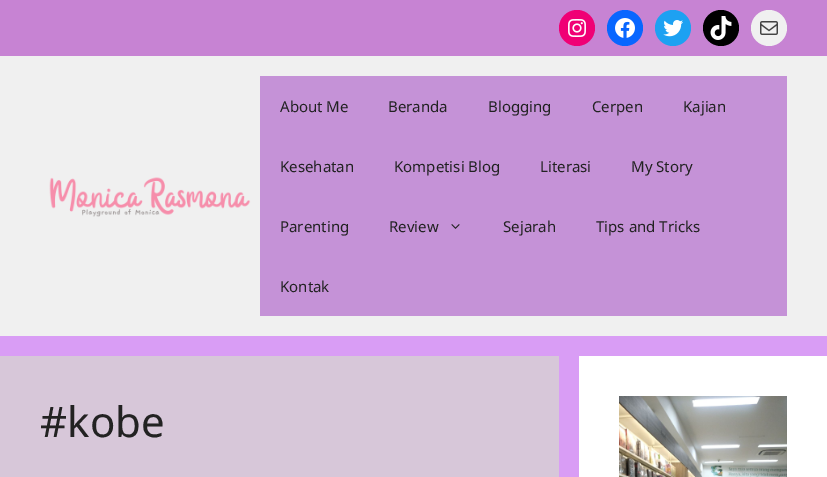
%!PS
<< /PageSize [827 477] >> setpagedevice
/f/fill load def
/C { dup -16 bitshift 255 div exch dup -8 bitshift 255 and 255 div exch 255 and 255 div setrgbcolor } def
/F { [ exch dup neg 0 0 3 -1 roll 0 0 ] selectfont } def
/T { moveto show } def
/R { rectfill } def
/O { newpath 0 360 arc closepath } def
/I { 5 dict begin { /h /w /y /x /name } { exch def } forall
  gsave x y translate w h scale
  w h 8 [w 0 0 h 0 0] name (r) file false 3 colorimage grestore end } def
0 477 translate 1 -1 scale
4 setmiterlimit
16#D99DF5 C
0 0 827 477 R
16#C783D3 C
0 0 827 56 R
16#F00075 C
577 28 18 O f
(1.rgb) 568 19 18 18 I
16#0866FF C
625 28 18 O f
(2.rgb) 615 18 20 20 I
16#1DA1F2 C
673 28 18 O f
(3.rgb) 663 20 20 17 I
16#000000 C
721 28 18 O f
(4.rgb) 710 16 22 24 I
16#F0F0F0 C
769 28 18 O f
(5.rgb) 760 21 18 14 I
0 56 827 280 R
(6.rgb) 49 177 202 40 I
16#C592D7 C
260 76 527 240 R
/NotoSans-Regular 15 F
16#222222 C
(About Me) 280 112 T
(Beranda) 388 112 T
(Blogging) 488 112 T
(Cerpen) 592 112 T
(Kajian) 683 112 T
(Kesehatan) 280 172 T
(Kompetisi Blog) 394 172 T
(Literasi) 540 172 T
(My Story) 631 172 T
(Parenting) 280 232 T
(Review) 389 232 T
(7.rgb) 451 224 9 5 I
(Sejarah) 503 232 T
(Tips and Tricks) 596 232 T
(Kontak) 280 292 T
16#D7C7D9 C
0 356 559 121 R
/NotoSans-Regular 42 F
16#222222 C
(#kobe) 40 437 T
16#FFFFFF C
579 356 248 121 R
(8.rgb) 619 396 168 81 I
showpage
